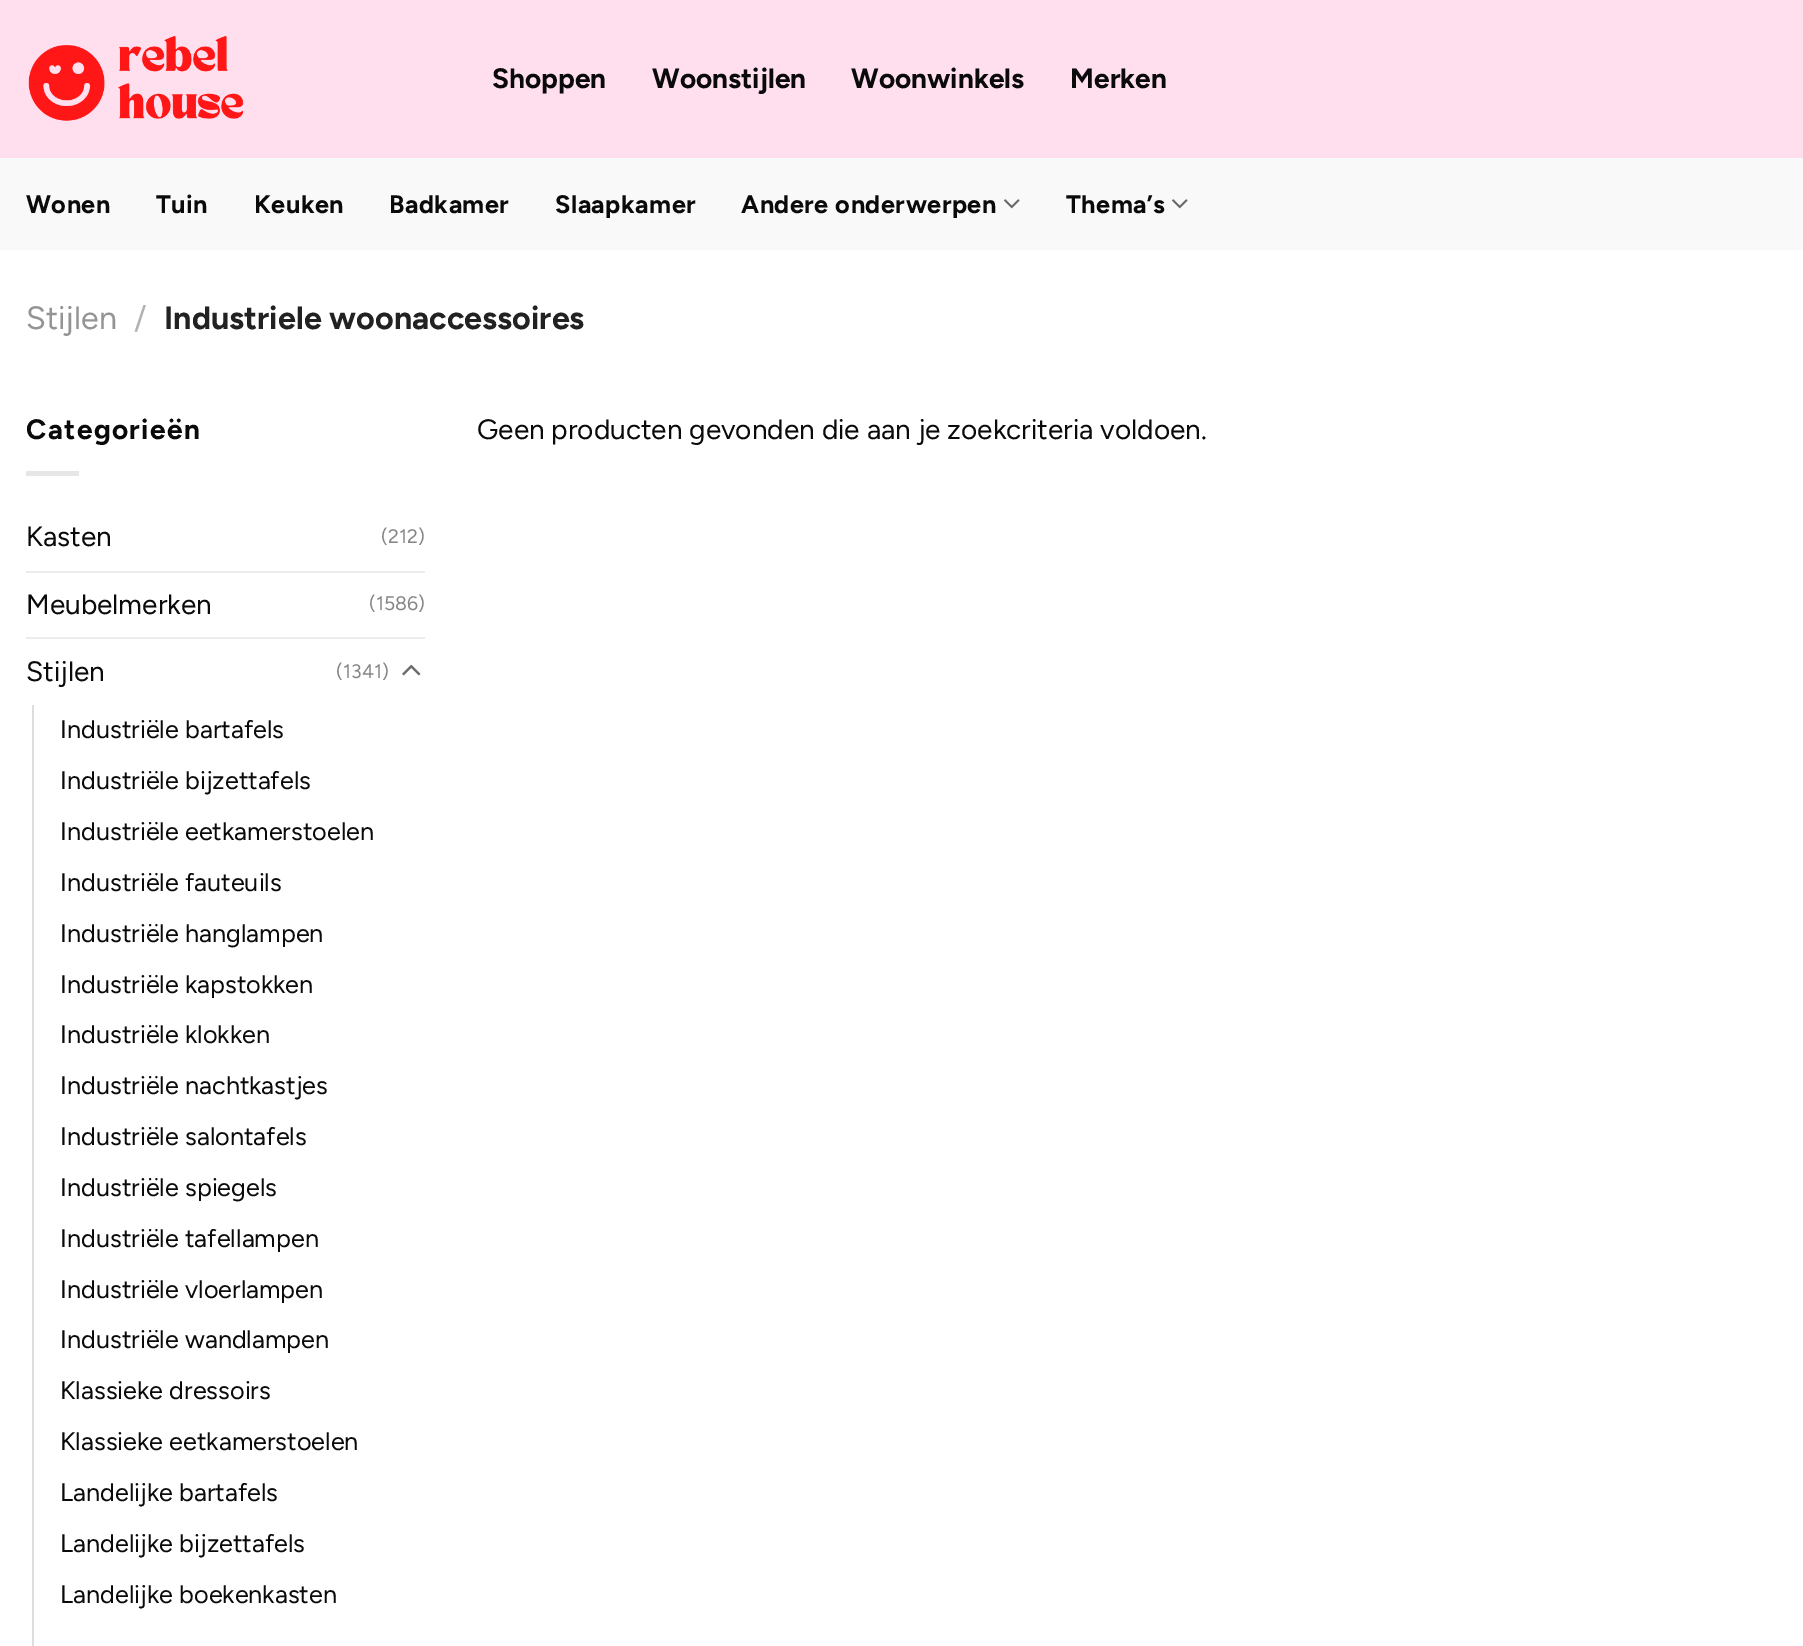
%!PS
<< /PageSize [1803 1646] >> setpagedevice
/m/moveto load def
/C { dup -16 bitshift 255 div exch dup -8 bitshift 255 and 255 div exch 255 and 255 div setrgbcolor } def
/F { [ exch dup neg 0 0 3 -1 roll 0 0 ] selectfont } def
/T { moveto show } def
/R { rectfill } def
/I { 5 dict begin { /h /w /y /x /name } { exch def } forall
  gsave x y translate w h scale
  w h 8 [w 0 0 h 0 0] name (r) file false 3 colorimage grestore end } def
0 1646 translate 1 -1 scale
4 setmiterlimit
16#FFFFFF C
0 0 1803 1646 R
16#FFDEEE C
0 0 1803 158 R
(1.rgb) 28 36 216 85 I
/Figtree-Bold 28 F
16#0A0A0A C
(Shoppen) 492 88 T
(Woonstijlen) 652 88 T
(Woonwinkels) 851 88 T
(Merken) 1070 88 T
16#F9F9F9 C
0 158 1803 92 R
/Figtree-Bold 25.25 F
16#0A0A0A C
26 213 m .5 0 (Wonen) ashow
156 213 m .5 0 (Tuin) ashow
254 213 m .5 0 (Keuken) ashow
389 213 m .5 0 (Badkamer) ashow
555 213 m .5 0 (Slaapkamer) ashow
741 213 m .5 0 (Andere onderwerpen) ashow
(2.rgb) 1004 199 16 10 I
1066 213 m .5 0 (Thema’s) ashow
(2.rgb) 1172 199 16 10 I
/Figtree-Regular 32.25 F
16#949494 C
(Stijlen) 26 329 T
16#B2B2B2 C
(/) 134 329 T
/Figtree-Bold 32.25 F
16#222222 C
(Industriele woonaccessoires) 164 329 T
/Figtree-Bold 28 F
16#0A0A0A C
26 439 m 1.4 0 (Categorieën) ashow
16#E6E6E6 C
26 471 53 5 R
/Figtree-Regular 28 F
16#0A0A0A C
(Kasten) 26 546 T
/Figtree-Regular 19.5 F
16#858585 C
(\(212\)) 381 543 T
16#ECECEC C
26 571 399 2 R
/Figtree-Regular 28 F
16#0A0A0A C
(Meubelmerken) 26 614 T
/Figtree-Regular 19.5 F
16#858585 C
(\(1586\)) 369 610 T
16#ECECEC C
26 637 399 2 R
/Figtree-Regular 28 F
16#0A0A0A C
(Stijlen) 26 681 T
/Figtree-Regular 19.5 F
16#858585 C
(\(1341\)) 336 678 T
(3.rgb) 402 664 19 12 I
16#DDDDDD C
32 705 2 941 R
/Figtree-Regular 25.25 F
16#0A0A0A C
(Industriële bartafels) 60 738 T
(Industriële bijzettafels) 60 789 T
(Industriële eetkamerstoelen) 60 840 T
(Industriële fauteuils) 60 891 T
(Industriële hanglampen) 60 942 T
(Industriële kapstokken) 60 993 T
(Industriële klokken) 60 1043 T
(Industriële nachtkastjes) 60 1094 T
(Industriële salontafels) 60 1145 T
(Industriële spiegels) 60 1196 T
(Industriële tafellampen) 60 1247 T
(Industriële vloerlampen) 60 1298 T
(Industriële wandlampen) 60 1348 T
(Klassieke dressoirs) 60 1399 T
(Klassieke eetkamerstoelen) 60 1450 T
(Landelijke bartafels) 60 1501 T
(Landelijke bijzettafels) 60 1552 T
(Landelijke boekenkasten) 60 1603 T
/Figtree-Regular 28 F
(Geen producten gevonden die aan je zoekcriteria voldoen.) 477 439 T
showpage
